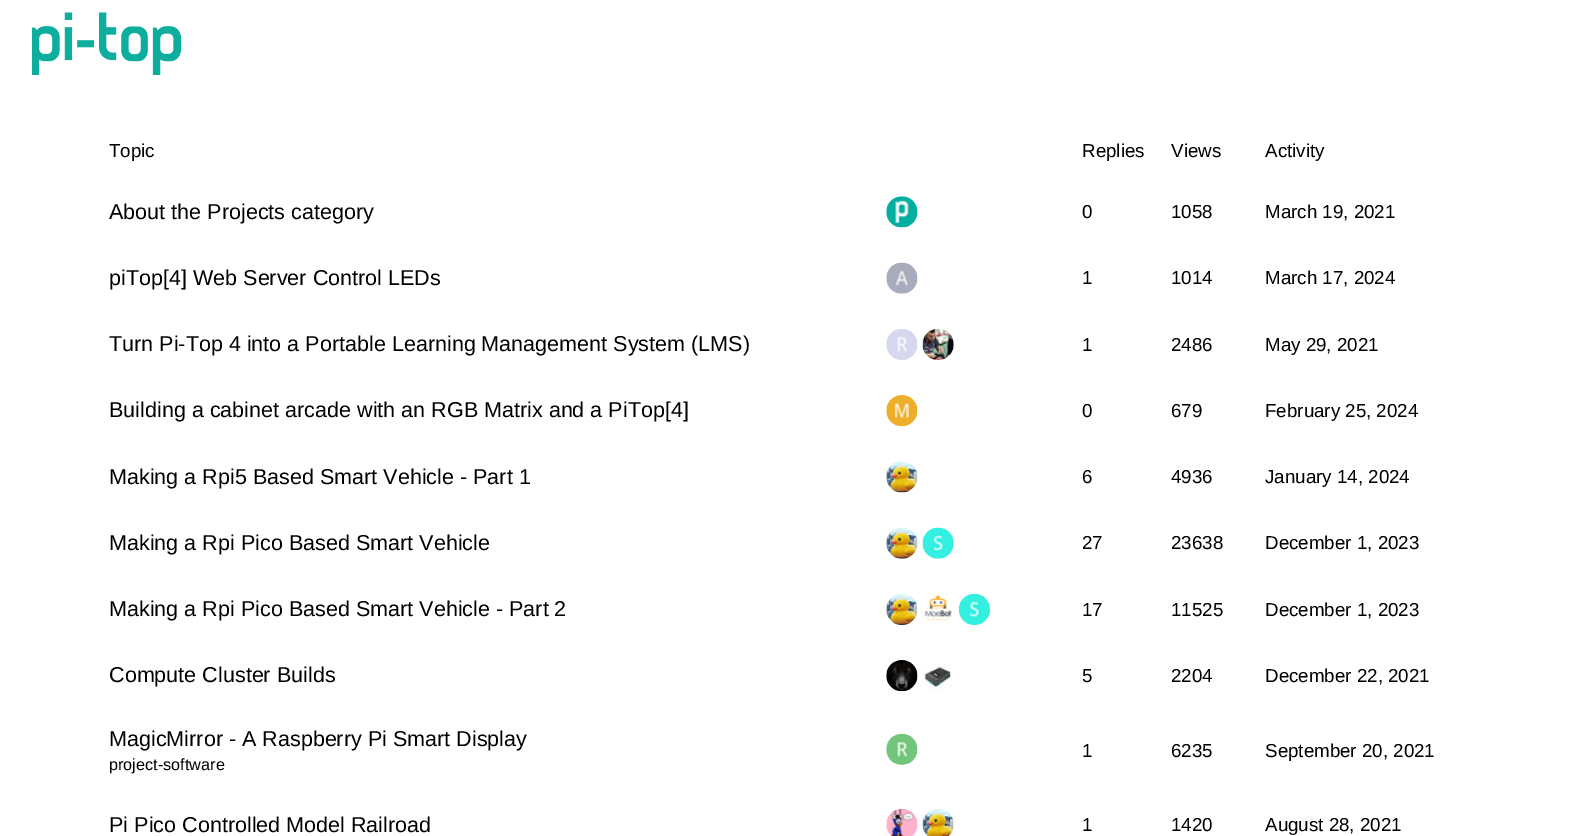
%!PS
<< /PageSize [1578 836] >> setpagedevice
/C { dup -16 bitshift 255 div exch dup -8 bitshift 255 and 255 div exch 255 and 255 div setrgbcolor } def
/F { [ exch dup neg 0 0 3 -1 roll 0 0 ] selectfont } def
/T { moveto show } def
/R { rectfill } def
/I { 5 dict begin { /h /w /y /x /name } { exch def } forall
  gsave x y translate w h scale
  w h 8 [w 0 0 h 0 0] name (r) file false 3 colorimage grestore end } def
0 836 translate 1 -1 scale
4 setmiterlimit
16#FFFFFF C
0 0 1578 836 R
(1.rgb) 32 12 149 63 I
/LiberationSans-Regular 18.75 F
16#000000 C
(Topic) 109 157 T
(Replies) 1082 157 T
(Views) 1171 157 T
(Activity) 1265 157 T
/LiberationSans-Regular 21.55 F
(About the Projects category) 109 219 T
(2.rgb) 886 196 32 32 I
/LiberationSans-Regular 18.75 F
(0) 1082 218 T
(1058) 1171 218 T
(March 19, 2021) 1265 218 T
/LiberationSans-Regular 21.55 F
(piTop[4] Web Server Control LEDs) 109 285 T
(3.rgb) 886 262 32 32 I
/LiberationSans-Regular 18.75 F
(1) 1082 284 T
(1014) 1171 284 T
(March 17, 2024) 1265 284 T
/LiberationSans-Regular 21.55 F
(Turn Pi-Top 4 into a Portable Learning Management System \(LMS\)) 109 351 T
(4.rgb) 886 329 32 31 I
(5.rgb) 922 328 32 32 I
/LiberationSans-Regular 18.75 F
(1) 1082 351 T
(2486) 1171 351 T
(May 29, 2021) 1265 351 T
/LiberationSans-Regular 21.55 F
(Building a cabinet arcade with an RGB Matrix and a PiTop[4]) 109 417 T
(6.rgb) 886 395 32 32 I
/LiberationSans-Regular 18.75 F
(0) 1082 417 T
(679) 1171 417 T
(February 25, 2024) 1265 417 T
/LiberationSans-Regular 21.55 F
(Making a Rpi5 Based Smart Vehicle - Part 1) 109 484 T
(7.rgb) 886 461 32 32 I
/LiberationSans-Regular 18.75 F
(6) 1082 483 T
(4936) 1171 483 T
(January 14, 2024) 1265 483 T
/LiberationSans-Regular 21.55 F
(Making a Rpi Pico Based Smart Vehicle) 109 550 T
(8.rgb) 886 527 32 32 I
(9.rgb) 922 527 32 32 I
/LiberationSans-Regular 18.75 F
(27) 1082 549 T
(23638) 1171 549 T
(December 1, 2023) 1265 549 T
/LiberationSans-Regular 21.55 F
(Making a Rpi Pico Based Smart Vehicle - Part 2) 109 616 T
(10.rgb) 886 594 32 31 I
(11.rgb) 924 594 28 27 I
(12.rgb) 958 593 32 32 I
/LiberationSans-Regular 18.75 F
(17) 1082 616 T
(11525) 1171 616 T
(December 1, 2023) 1265 616 T
/LiberationSans-Regular 21.55 F
(Compute Cluster Builds) 109 682 T
(13.rgb) 886 660 32 32 I
(14.rgb) 923 664 30 26 I
/LiberationSans-Regular 18.75 F
(5) 1082 682 T
(2204) 1171 682 T
(December 22, 2021) 1265 682 T
/LiberationSans-Regular 21.55 F
(MagicMirror - A Raspberry Pi Smart Display) 109 746 T
/LiberationSans-Regular 16.25 F
(project-software) 109 770 T
(15.rgb) 886 733 32 32 I
/LiberationSans-Regular 18.75 F
(1) 1082 757 T
(6235) 1171 757 T
(September 20, 2021) 1265 757 T
/LiberationSans-Regular 21.55 F
(Pi Pico Controlled Model Railroad) 109 832 T
(16.rgb) 886 808 32 28 I
(17.rgb) 922 809 32 27 I
/LiberationSans-Regular 18.75 F
(1) 1082 831 T
(1420) 1171 831 T
(August 28, 2021) 1265 831 T
showpage
